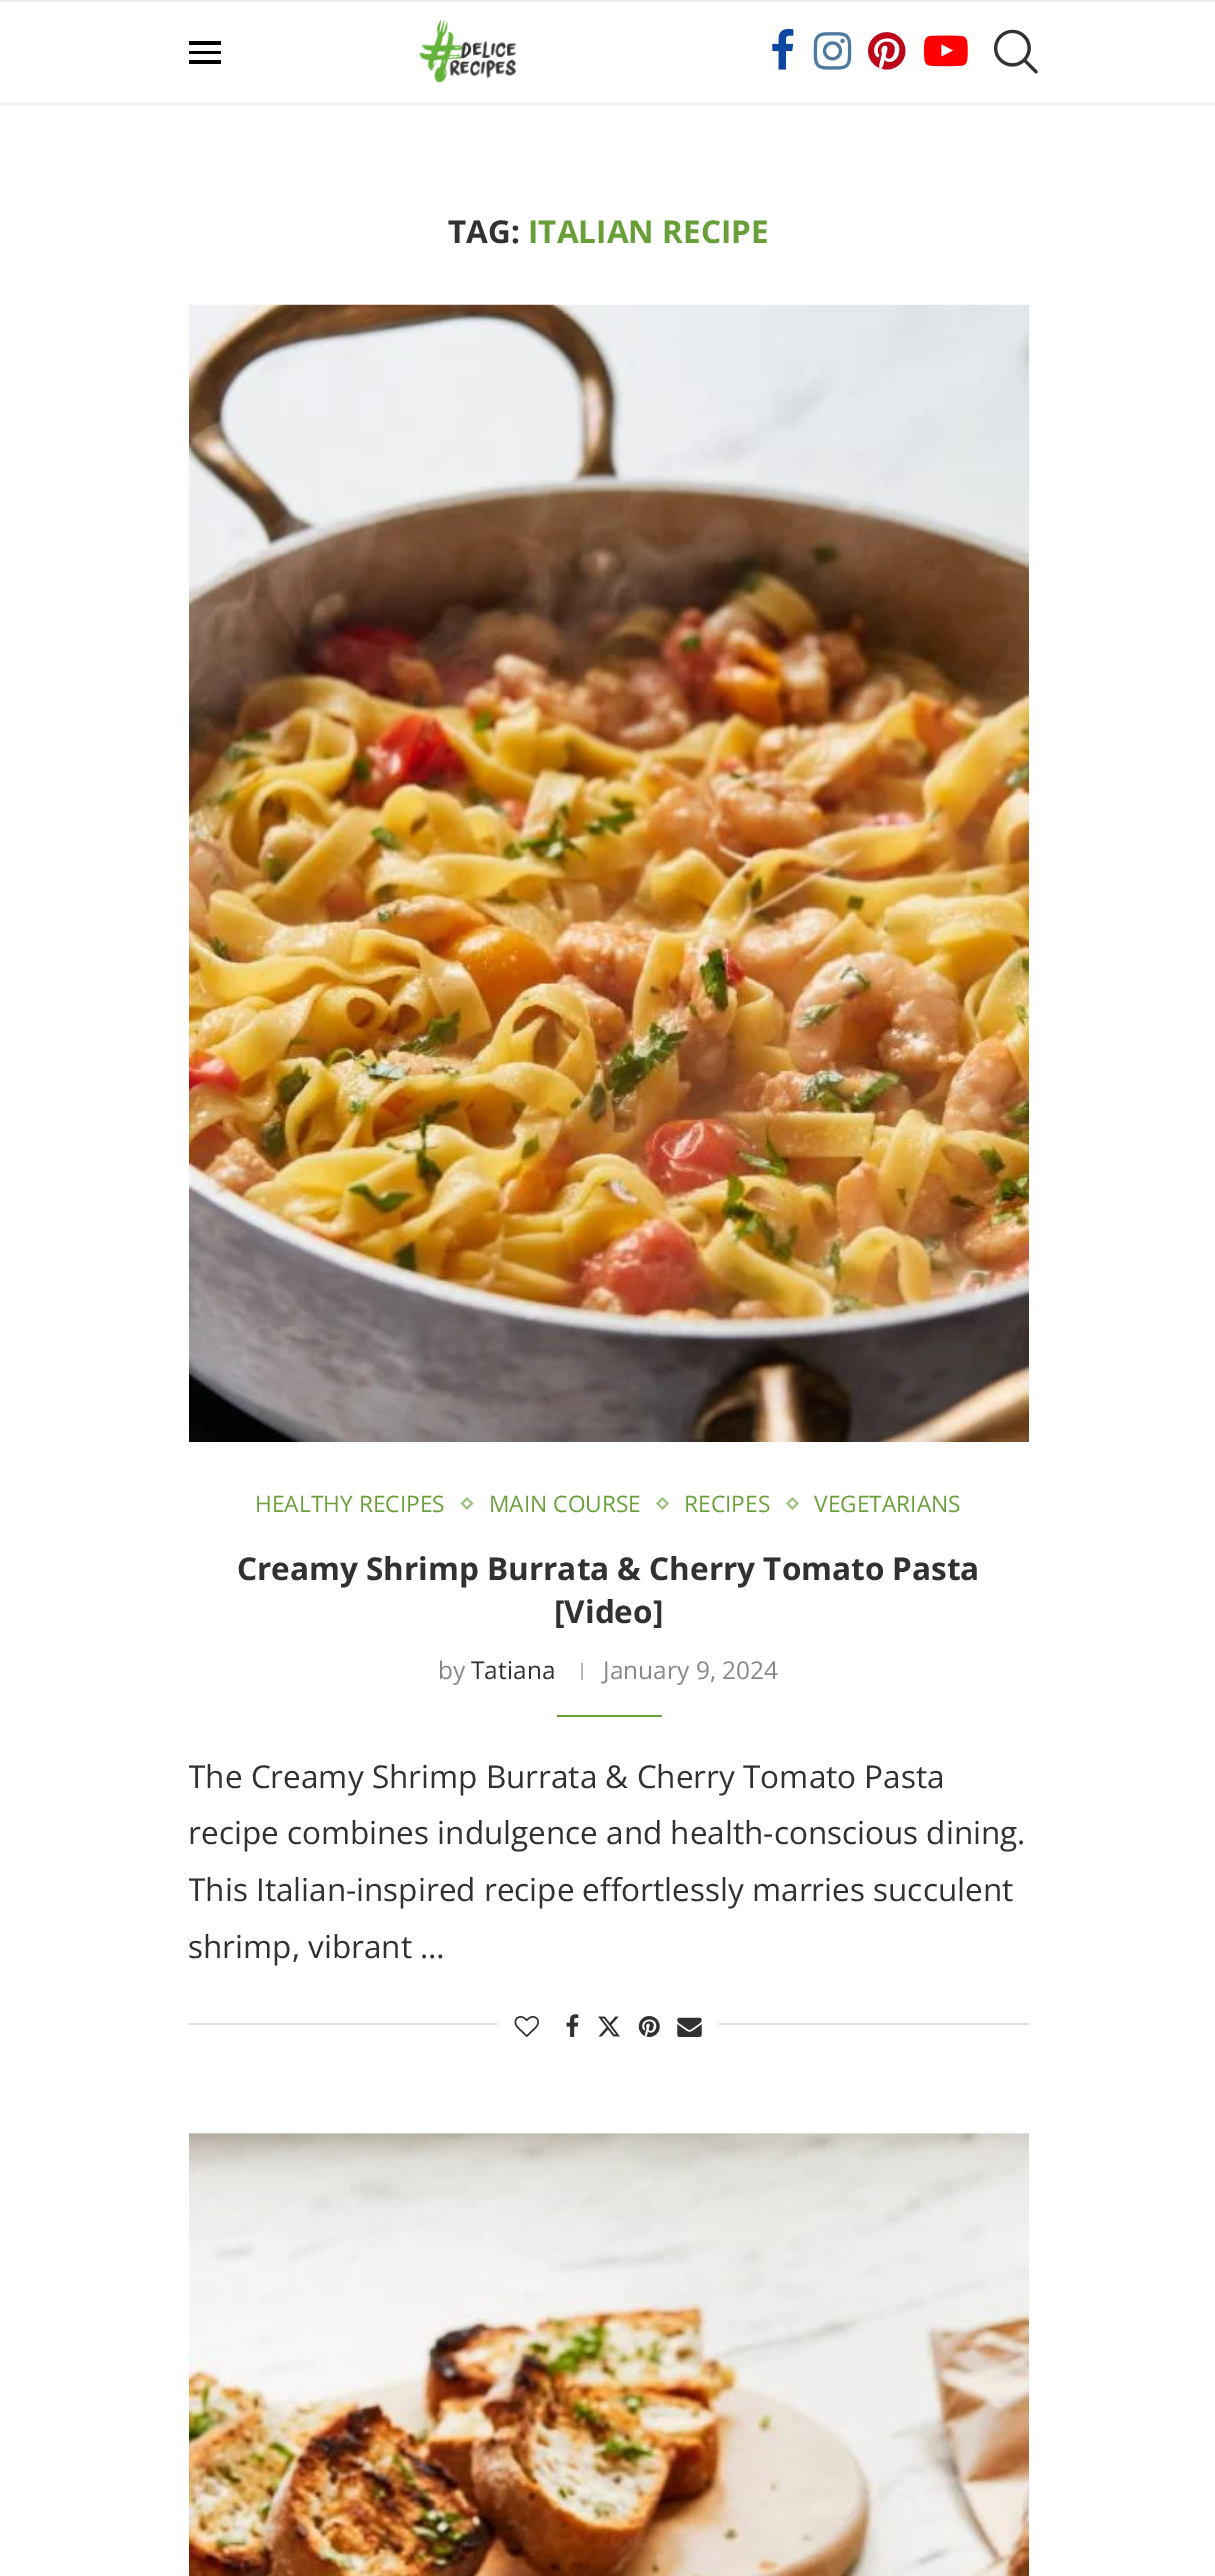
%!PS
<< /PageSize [1215 2576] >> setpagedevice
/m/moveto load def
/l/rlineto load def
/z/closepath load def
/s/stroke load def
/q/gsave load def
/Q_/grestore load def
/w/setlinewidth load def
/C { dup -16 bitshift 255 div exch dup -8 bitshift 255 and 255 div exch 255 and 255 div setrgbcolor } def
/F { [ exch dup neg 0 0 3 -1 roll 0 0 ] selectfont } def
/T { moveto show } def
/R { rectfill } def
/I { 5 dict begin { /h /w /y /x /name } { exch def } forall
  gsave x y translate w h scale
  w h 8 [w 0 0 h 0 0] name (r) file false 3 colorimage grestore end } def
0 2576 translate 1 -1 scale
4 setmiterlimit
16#FFFFFF C
0 0 1215 2576 R
16#ECECEC C
0 0 1215 2 R
0 103 1215 2 R
16#000000 C
189 41 32 4 R
189 51 32 3 R
189 60 32 4 R
(1.rgb) 419 19 98 65 I
(2.rgb) 772 29 22 41 I
(3.rgb) 813 32 39 38 I
(4.rgb) 868 32 38 38 I
(5.rgb) 924 35 44 32 I
(6.rgb) 994 29 44 45 I
/OpenSans-Bold 31.5 F
16#313131 C
(TAG:) 448 243 T
16#689F38 C
(ITALIAN RECIPE) 528 243 T
(7.rgb) 189 304 840 1138 I
/OpenSans-Regular 22.75 F
(HEALTHY RECIPES) 255 1512 T
16#9DC17E C
1.8 w
467 1498.5 m 5 5 l -5 5 l -5 -5 l z s
16#689F38 C
(MAIN COURSE) 489 1512 T
16#9DC17E C
662.5 1498.5 m 5 5 l -5 5 l -5 -5 l z s
16#689F38 C
(RECIPES) 684 1512 T
16#9DC17E C
792.5 1498.5 m 5 5 l -5 5 l -5 -5 l z s
16#689F38 C
(VEGETARIANS) 814 1512 T
/OpenSans-Bold 31.5 F
16#313131 C
(Creamy Shrimp Burrata & Cherry Tomato Pasta) 237 1580 T
([Video]) 554 1623 T
/OpenSans-Regular 24.5 F
16#888888 C
(by) 438 1679 T
16#313131 C
(Tatiana) 471 1679 T
16#B8B8B8 C
581 1663 2 17 R
16#888888 C
(January 9, 2024) 603 1679 T
16#689F38 C
557 1715 105 2 R
q
189 1748 840 226 rectclip
/OpenSans-Regular 31.5 F
16#313131 C
(The Creamy Shrimp Burrata & Cherry Tomato Pasta) 188 1788 T
Q_
/OpenSans-Regular 31.5 F
16#313131 C
(recipe combines indulgence and health-conscious dining.) 188 1844 T
q
189 1748 840 226 rectclip
(This Italian-inspired recipe effortlessly marries succulent) 188 1901 T
Q_
(shrimp, vibrant …) 188 1958 T
16#DEDEDE C
189 2023 840 2 R
16#FFFFFF C
497 2023 222 2 R
(8.rgb) 514 2016 25 21 I
(9.rgb) 566 2014 13 23 I
(10.rgb) 598 2016 22 21 I
(11.rgb) 638 2016 22 21 I
(12.rgb) 677 2017 25 20 I
16#F5F5F5 C
189 2133 840 1 R
(13.rgb) 189 2133 840 443 I
showpage
